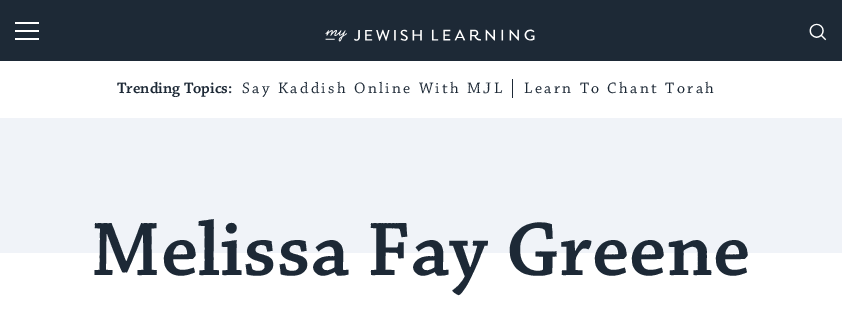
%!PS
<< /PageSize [842 322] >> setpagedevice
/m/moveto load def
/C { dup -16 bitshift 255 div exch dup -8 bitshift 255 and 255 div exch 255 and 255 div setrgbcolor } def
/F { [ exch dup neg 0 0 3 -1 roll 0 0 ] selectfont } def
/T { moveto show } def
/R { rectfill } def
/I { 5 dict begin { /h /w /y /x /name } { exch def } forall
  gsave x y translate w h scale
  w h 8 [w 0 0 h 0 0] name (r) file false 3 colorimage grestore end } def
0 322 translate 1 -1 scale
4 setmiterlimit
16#FFFFFF C
0 0 842 322 R
16#1D2936 C
0 0 842 61 R
16#FFFFFF C
15 38 24 2 R
15 22 24 2 R
15 30 24 2 R
(1.rgb) 325 29 210 13 I
(2.rgb) 809 23 18 18 I
/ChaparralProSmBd-SemiBold 16 F
16#1D2936 C
(Trending Topics:) 117 93 T
/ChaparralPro-Regular 16 F
242 93 m 2.4 0 (Say Kaddish Online With MJL) ashow
512 79 1 19 R
524 93 m 2.4 0 (Learn To Chant Torah) ashow
16#F0F3F8 C
0 118 842 135 R
/ChaparralProSmBd-SemiBold 80 F
16#1D2936 C
(Melissa Fay Greene) 91 275 T
showpage
